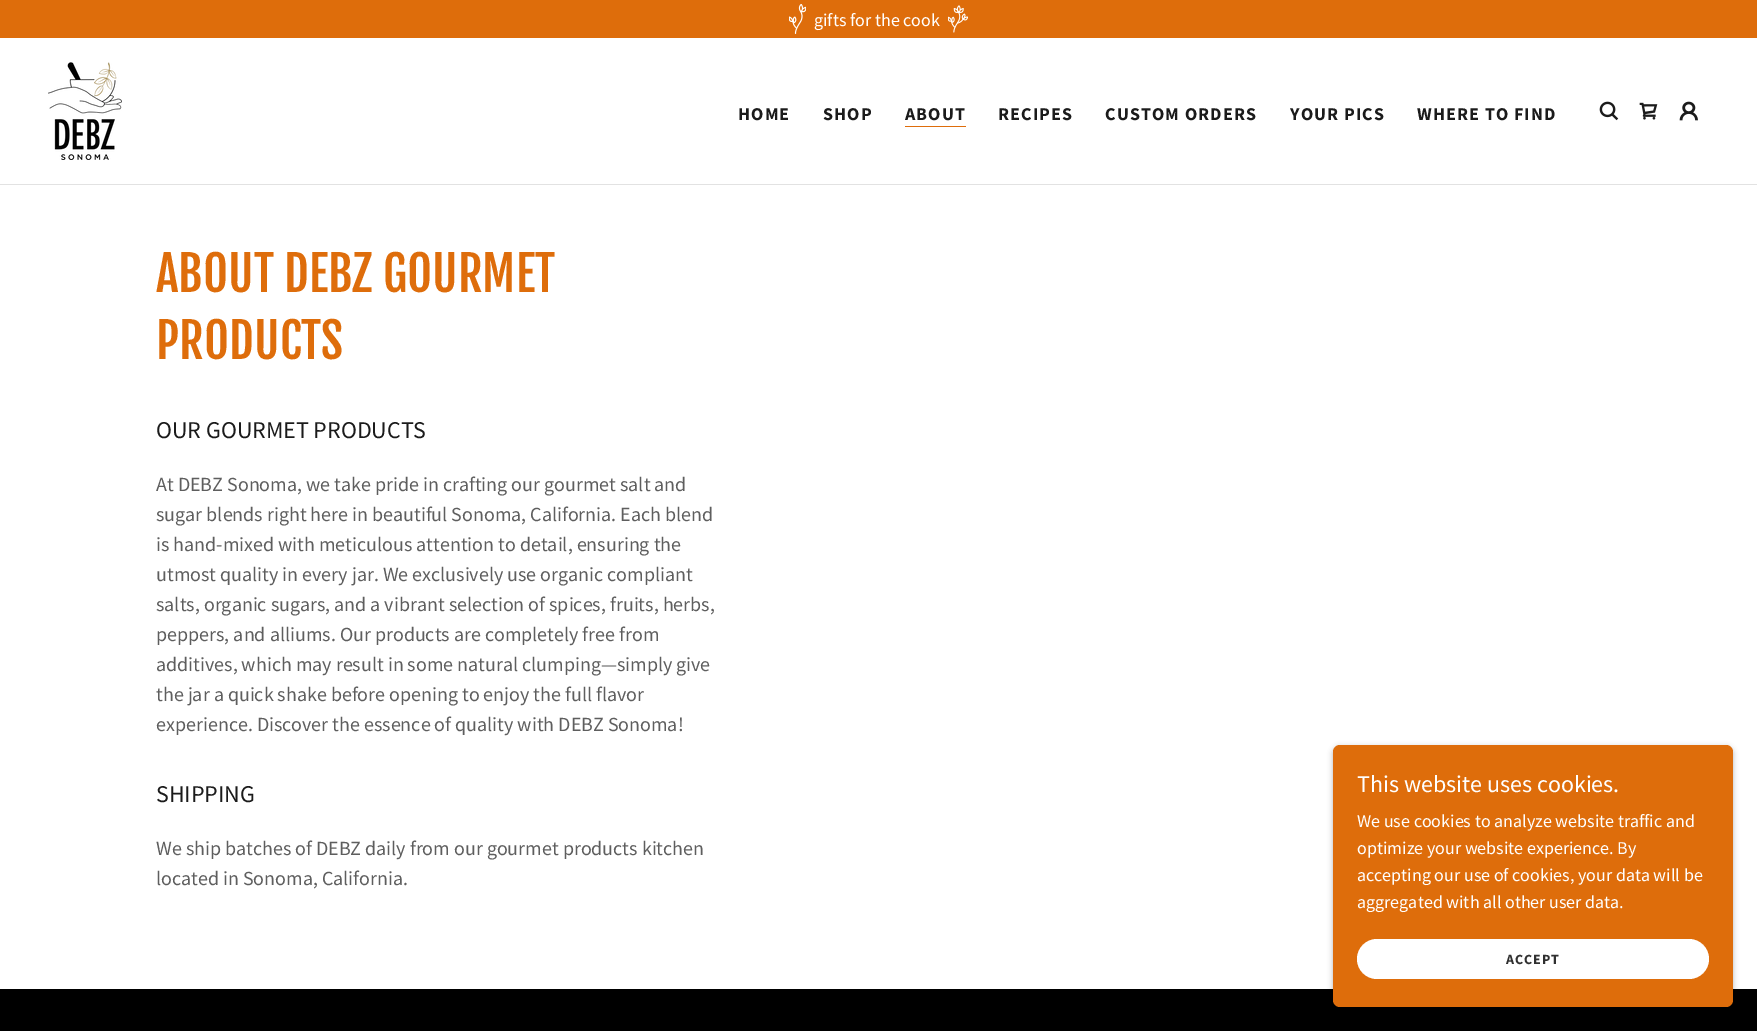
%!PS
<< /PageSize [1757 1031] /PageUsesTransparency true >> setpagedevice
/m/moveto load def
/f/fill load def
/C { dup -16 bitshift 255 div exch dup -8 bitshift 255 and 255 div exch 255 and 255 div setrgbcolor } def
/F { [ exch dup neg 0 0 3 -1 roll 0 0 ] selectfont } def
/T { moveto show } def
/R { rectfill } def
/A { dup .setfillconstantalpha .setstrokeconstantalpha } def
/Q { 5 dict begin { /r /h /w /y /x } { exch def } forall
  x r add y moveto x w add y 2 copy h add r arct x w add y h add x 1 index r arct
  x y h add x y r arct x y 2 copy exch w add exch r arct closepath end } def
/S { 12 dict begin { /a /b /q /h /w /y /x } { exch def } forall gsave /was 0 def
  9 -2 -9 { dup b mul 4 div /e exch def 1 sub .425 mul 2.718 exch exp 1 add a .99 .min exch div /now exch def
    1 1 now sub 1 was sub div sub A /was now def
    w h .min e 2 mul add 0 gt { x e sub y e sub w e 2 mul add h e 2 mul add
      q e add b .6 mul add w h .min 2 div e add .min 0 .max Q fill } if } for grestore end } def
/I { 5 dict begin { /h /w /y /x /name } { exch def } forall
  gsave x y translate w h scale
  w h 8 [w 0 0 h 0 0] name (r) file false 3 colorimage grestore end } def
0 .pushpdf14devicefilter
0 1031 translate 1 -1 scale
4 setmiterlimit
16#000000 C
0 0 1757 1031 R
16#DE6D0B C
0 0 1757 38 R
(1.rgb) 789 4 17 30 I
/SourceSansPro-Regular 18 F
16#FFFFFF C
(gifts for the cook) 814 26 T
(2.rgb) 948 5 20 28 I
0 38 1757 146 R
(3.rgb) 48 62 74 98 I
/SourceSansPro-Bold 18 F
16#1B1B1B C
738 120 m 1.1 0 (HOME) ashow
823 120 m 1.1 0 (SHOP) ashow
16#DE6D0B C
905 126 61 1 R
16#1B1B1B C
905 120 m 1.1 0 (ABOUT) ashow
998 120 m 1.1 0 (RECIPES) ashow
1105 120 m 1.1 0 (CUSTOM ORDERS) ashow
1290 120 m 1.1 0 (YOUR PICS) ashow
1417 120 m 1.1 0 (WHERE TO FIND) ashow
(4.rgb) 1599 101 20 20 I
(5.rgb) 1639 102 19 18 I
(6.rgb) 1679 101 19 20 I
16#E2E2E2 C
0 184 1757 1 R
16#FFFFFF C
0 185 1757 804 R
/FjallaOne-Regular 48 F
16#DE6D0B C
(ABOUT DEBZ GOURMET) 156 292 T
(PRODUCTS) 156 359 T
/SourceSansPro-Regular 24 F
16#1B1B1B C
(OUR GOURMET PRODUCTS) 156 438 T
/SourceSansPro-Regular 20 F
16#5E5E5E C
(At DEBZ Sonoma, we take pride in crafting our gourmet salt and) 156 491 T
(sugar blends right here in beautiful Sonoma, California. Each blend) 156 521 T
(is hand-mixed with meticulous attention to detail, ensuring the) 156 551 T
(utmost quality in every jar. We exclusively use organic compliant) 156 581 T
(salts, organic sugars, and a vibrant selection of spices, fruits, herbs,) 156 611 T
(peppers, and alliums. Our products are completely free from) 156 641 T
(additives, which may result in some natural clumping—simply give) 156 671 T
(the jar a quick shake before opening to enjoy the full flavor) 156 701 T
(experience. Discover the essence of quality with DEBZ Sonoma!) 156 731 T
/SourceSansPro-Regular 24 F
16#1B1B1B C
(SHIPPING) 156 802 T
/SourceSansPro-Regular 20 F
16#5E5E5E C
(We ship batches of DEBZ daily from our gourmet products kitchen) 156 855 T
(located in Sonoma, California.) 156 885 T
16#000000 C
1333 747 400 262 7 3 .3 S
16#DE6D0B C
1333 745 400 262 7 Q f
/SourceSansPro-Regular 24 F
16#FFFFFF C
(This website uses cookies.) 1357 792 T
/SourceSansPro-Regular 18 F
(We use cookies to analyze website traffic and) 1357 827 T
(optimize your website experience. By) 1357 854 T
(accepting our use of cookies, your data will be) 1357 881 T
(aggregated with all other user data.) 1357 908 T
1357 939 352 40 20 Q f
/SourceSansPro-Bold 14 F
16#303030 C
1506 964 m 1 0 (ACCEPT) ashow
.poppdf14devicefilter showpage
